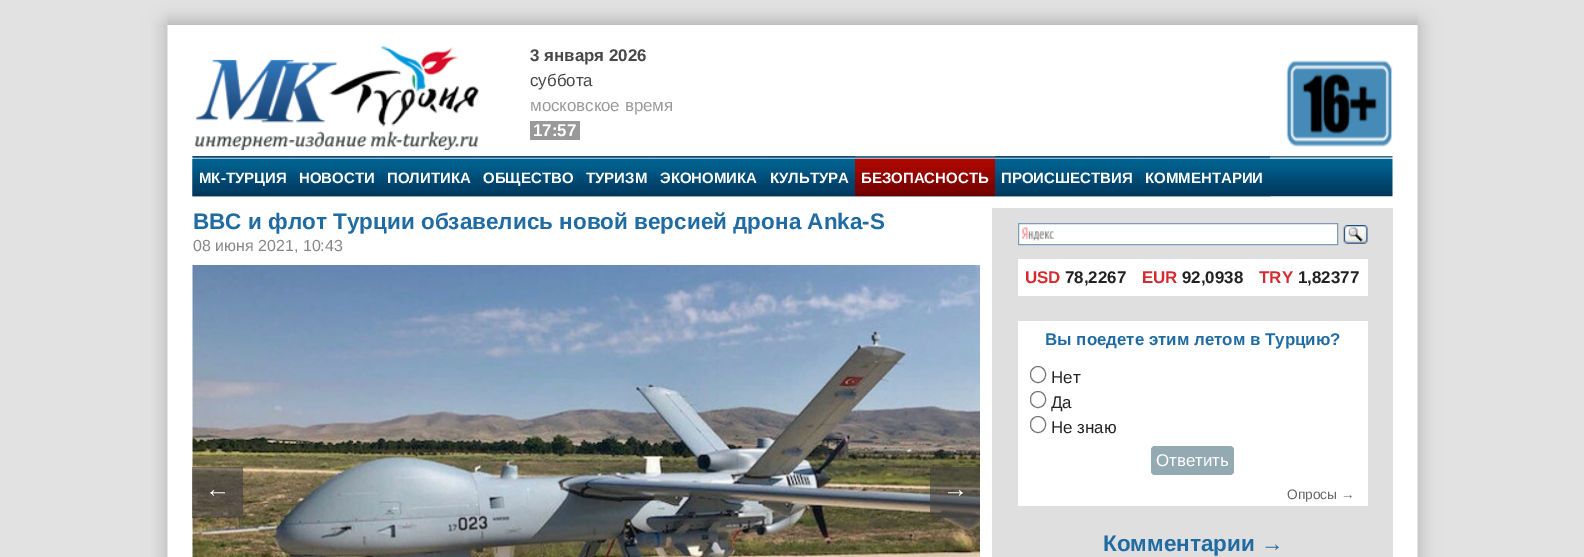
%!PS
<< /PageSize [1584 557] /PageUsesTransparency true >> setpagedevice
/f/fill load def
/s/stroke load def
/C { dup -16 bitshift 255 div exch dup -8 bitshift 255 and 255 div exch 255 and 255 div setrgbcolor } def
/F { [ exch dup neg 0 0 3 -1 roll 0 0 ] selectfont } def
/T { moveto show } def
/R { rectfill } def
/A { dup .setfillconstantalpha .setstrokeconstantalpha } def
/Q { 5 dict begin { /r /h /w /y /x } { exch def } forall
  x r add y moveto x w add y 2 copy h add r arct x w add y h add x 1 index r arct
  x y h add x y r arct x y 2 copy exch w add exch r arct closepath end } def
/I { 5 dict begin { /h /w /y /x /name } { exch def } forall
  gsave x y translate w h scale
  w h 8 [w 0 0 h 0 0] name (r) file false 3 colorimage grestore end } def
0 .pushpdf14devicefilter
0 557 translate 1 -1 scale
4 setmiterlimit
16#FFFFFF C
0 0 1584 557 R
(1.rgb) 0 25 1584 532 I
(2.rgb) 0 0 1584 25 I
(3.rgb) 194 46 285 104 I
/LiberationSans-Bold 16.9 F
16#484848 C
(3 января 2026) 530 61 T
/LiberationSans-Regular 16.9 F
(суббота) 530 86 T
16#999999 C
(московское время) 530 111 T
530 121 50 19 R
/LiberationSans-Bold 16.9 F
16#FFFFFF C
(17:57) 533 136 T
(4.rgb) 1286 60 107 87 I
(5.rgb) 192 156 1201 41 I
(6.rgb) 192 156 101 41 I
/LiberationSans-Bold 15 F
(МК-ТУРЦИЯ) 199 183 T
(7.rgb) 292 156 90 41 I
(НОВОСТИ) 299 183 T
(8.rgb) 381 156 97 41 I
(ПОЛИТИКА) 387 183 T
(9.rgb) 477 156 103 41 I
(ОБЩЕСТВО) 483 183 T
(10.rgb) 580 156 74 41 I
(ТУРИЗМ) 586 183 T
(11.rgb) 653 156 111 41 I
(ЭКОНОМИКА) 660 183 T
(12.rgb) 763 156 92 41 I
(КУЛЬТУРА) 770 183 T
(13.rgb) 855 156 140 41 I
(БЕЗОПАСНОСТЬ) 861 183 T
(14.rgb) 995 156 144 41 I
(ПРОИСШЕСТВИЯ) 1001 183 T
(15.rgb) 1138 156 132 41 I
(КОММЕНТАРИИ) 1145 183 T
16#DFDFDF C
992 208 401 349 R
/LiberationSans-Bold 22.5 F
16#1F6BA2 C
(ВВС и флот Турции обзавелись новой версией дрона Anka-S) 193 229 T
/LiberationSans-Regular 16 F
16#888888 C
(08 июня 2021, 10:43) 193 251 T
(16.rgb) 192 265 788 292 I
0.6 A
16#3F3F3F C
192 467 51 51 R
/LiberationSans-Bold 25 F
1 A
16#FFFFFF C
(←) 205 497 T
0.6 A
16#3F3F3F C
930 467 50 51 R
1 A
16#FFFFFF C
(→) 943 497 T
1019 224 318 20 R
(17.rgb) 1021 227 33 14 I
16#7F9DB9 C
1018.5 223.5 319 21 rectstroke
(18.rgb) 1343 225 25 19 I
16#FFFFFF C
1018 259 350 37 R
/LiberationSans-Bold 16.9 F
16#D32B30 C
(USD) 1025 283 T
16#222222 C
(78,2267) 1065 283 T
16#D32B30 C
(EUR) 1142 283 T
16#222222 C
(92,0938) 1182 283 T
16#D32B30 C
(TRY) 1259 283 T
16#222222 C
(1,82377) 1298 283 T
16#FFFFFF C
1018 321 350 185 R
16#1F6BA2 C
(Вы поедете этим летом в Турцию?) 1045 345 T
16#767676 C
1030.5 366.5 15 16 7.5 Q s
/LiberationSans-Regular 16.9 F
16#222222 C
(Нет) 1051 383 T
16#767676 C
1030.5 391.5 15 16 7.5 Q s
16#222222 C
(Да) 1051 408 T
16#767676 C
1030.5 416.5 15 16 7.5 Q s
16#222222 C
(Не знаю) 1051 433 T
16#94AAB3 C
1151 446 83 29 4 Q f
16#FFFFFF C
(Ответить) 1156 466 T
/LiberationSans-Regular 13.75 F
16#666666 C
(Опросы →) 1287 499 T
/LiberationSans-Bold 22.5 F
16#1F6BA2 C
(Комментарии →) 1103 551 T
.poppdf14devicefilter showpage
